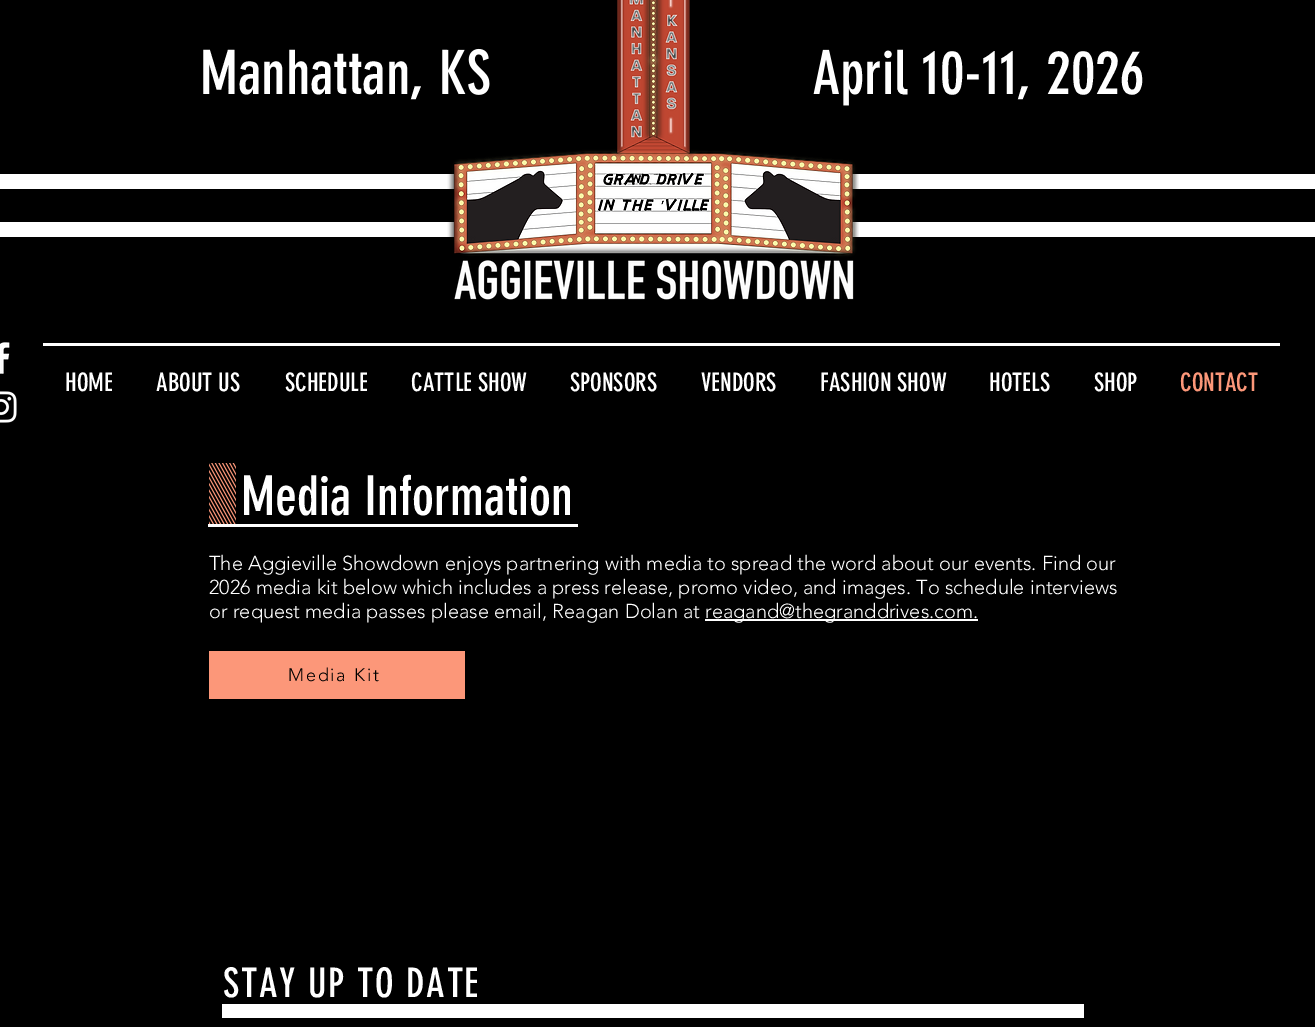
%!PS
<< /PageSize [1315 1027] >> setpagedevice
/m/moveto load def
/C { dup -16 bitshift 255 div exch dup -8 bitshift 255 and 255 div exch 255 and 255 div setrgbcolor } def
/F { [ exch dup neg 0 0 3 -1 roll 0 0 ] selectfont } def
/T { moveto show } def
/R { rectfill } def
/I { 5 dict begin { /h /w /y /x /name } { exch def } forall
  gsave x y translate w h scale
  w h 8 [w 0 0 h 0 0] name (r) file false 3 colorimage grestore end } def
0 1027 translate 1 -1 scale
4 setmiterlimit
16#000000 C
0 0 1315 1027 R
/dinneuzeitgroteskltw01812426-Regular 60 F
16#FFFFFF C
(Manhattan, KS) 200 94 T
(April 10-11, 2026) 812 94 T
0 174 1315 15 R
0 222 1315 15 R
(1.rgb) 447 0 412 300 I
(2.rgb) 0 342 10 32 I
(3.rgb) 0 391 17 32 I
43 343 1237 3 R
/dinneuzeitgroteskltw01812426-Regular 25 F
(HOME) 65 391 T
(ABOUT US) 156 391 T
(SCHEDULE) 285 391 T
(CATTLE SHOW) 411 391 T
(SPONSORS) 570 391 T
(VENDORS) 701 391 T
(FASHION SHOW) 820 391 T
(HOTELS) 989 391 T
(SHOP) 1094 391 T
16#FC9779 C
(CONTACT) 1180 391 T
(4.rgb) 209 463 27 61 I
/dinneuzeitgroteskltw01812426-Regular 54 F
16#FFFFFF C
(Media Information) 241 515 T
208 524 370 3 R
/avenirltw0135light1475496-Light 20 F
(The Aggieville Showdown enjoys partnering with media to spread the word about our events. Find our) 209 570 T
(2026 media kit below which includes a press release, promo video, and images. To schedule interviews) 209 594 T
(or request media passes please email, Reagan Dolan at) 209 618 T
705 619 273 2 R
(reagand@thegranddrives.com.) 705 618 T
16#FC9779 C
209 651 256 48 R
/avenirltw0135light1475496-Light 18 F
16#000000 C
288 681 m 1.75 0 (Media Kit) ashow
/dinneuzeitgroteskltw01812426-Regular 40 F
16#FFFFFF C
223 997 m 1.6 0 (STAY UP TO DATE) ashow
222 1004 862 14 R
showpage
